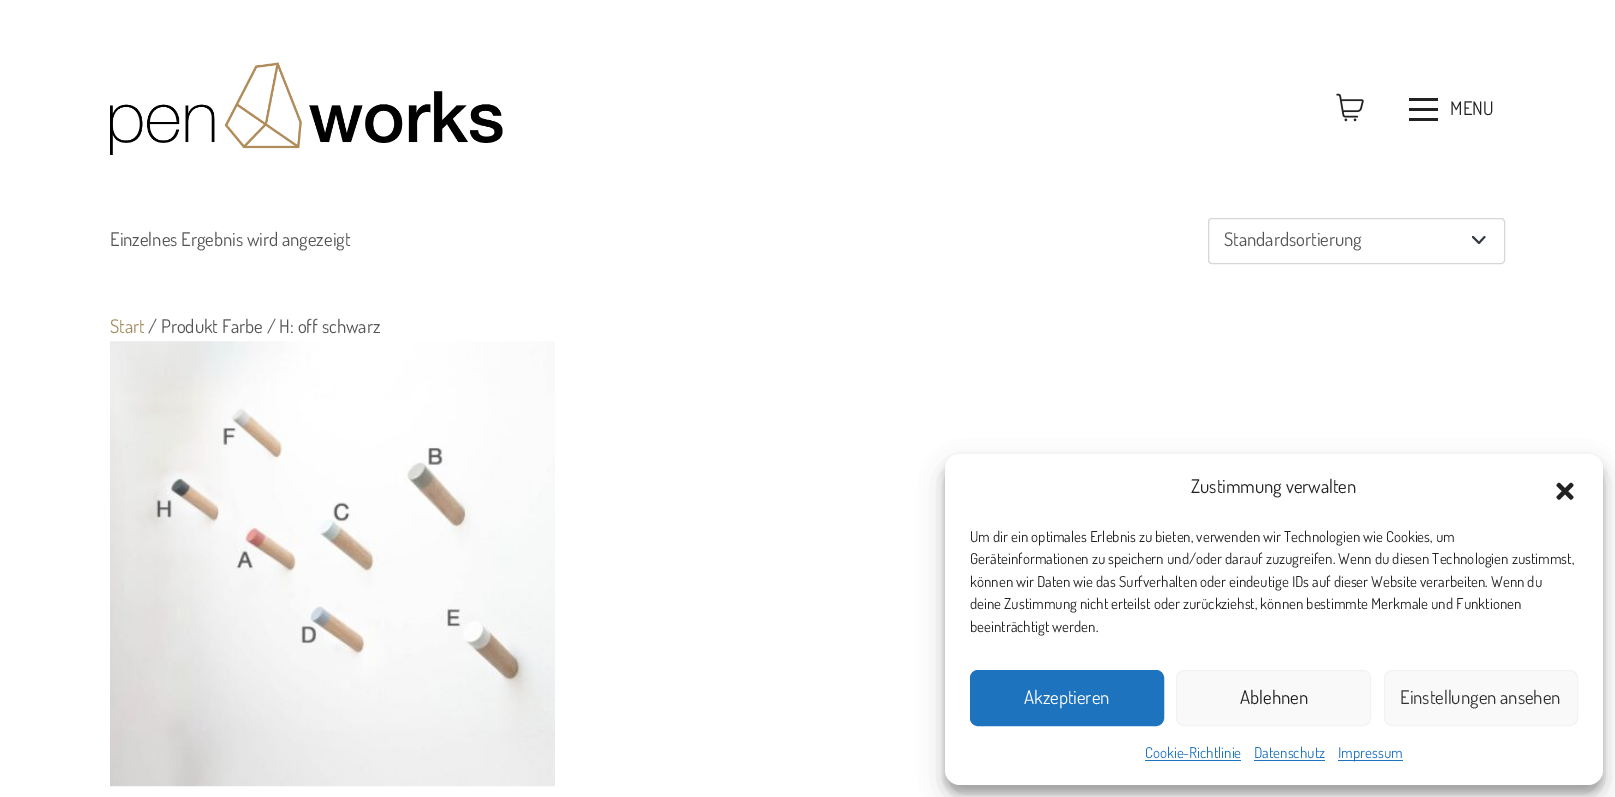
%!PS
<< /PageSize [1615 797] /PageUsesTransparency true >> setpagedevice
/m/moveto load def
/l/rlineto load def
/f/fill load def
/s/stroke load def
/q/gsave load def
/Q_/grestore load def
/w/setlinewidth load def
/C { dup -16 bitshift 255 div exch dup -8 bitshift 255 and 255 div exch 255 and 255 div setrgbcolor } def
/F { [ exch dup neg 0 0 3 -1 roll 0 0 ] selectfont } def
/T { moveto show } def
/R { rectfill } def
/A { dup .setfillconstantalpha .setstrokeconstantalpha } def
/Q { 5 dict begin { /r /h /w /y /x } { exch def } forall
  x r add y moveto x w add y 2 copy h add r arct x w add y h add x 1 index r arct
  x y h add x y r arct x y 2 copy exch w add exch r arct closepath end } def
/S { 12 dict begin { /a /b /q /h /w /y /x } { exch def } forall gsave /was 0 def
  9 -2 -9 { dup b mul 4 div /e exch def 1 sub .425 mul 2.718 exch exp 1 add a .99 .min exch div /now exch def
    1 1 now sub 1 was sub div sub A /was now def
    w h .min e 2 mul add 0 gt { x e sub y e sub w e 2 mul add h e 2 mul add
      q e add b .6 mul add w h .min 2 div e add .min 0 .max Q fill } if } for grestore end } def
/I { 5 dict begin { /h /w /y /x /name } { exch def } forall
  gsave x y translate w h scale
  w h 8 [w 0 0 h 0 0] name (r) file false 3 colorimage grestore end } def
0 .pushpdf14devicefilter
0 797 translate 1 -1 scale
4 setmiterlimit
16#FFFFFF C
0 0 1615 797 R
(1.rgb) 110 62 393 93 I
(2.rgb) 1336 93 28 29 I
16#222222 C
1409 98 29 3 R
1409 108 29 3 R
1409 118 29 3 R
/Dosis-Regular 18.75 F
(MENU) 1450 115 T
16#555555 C
(Einzelnes Ergebnis wird angezeigt) 110 246 T
16#343A40 C
1.9 w
1 setlinecap
1 setlinejoin
1473 237 m 6 6 l 5.5 -6 l s
16#D6D6D6 C
1 w
0 setlinecap
0 setlinejoin
1208.5 218.5 296 45 3.5 Q s
16#555555 C
(Standardsortierung) 1224 246 T
16#A58F60 C
(Start) 110 333 T
16#555555 C
(/ Produkt Farbe / H: off schwarz) 148 333 T
(3.rgb) 110 341 445 446 I
16#000000 C
945 461 658 332 15 4 .23 S
945 466 658 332 15 12.5 .19 S
16#FFFFFF C
945 454 658 331 15 Q f
16#222222 C
(Zustimmung verwalten) 1191 493 T
(4.rgb) 1556 482 18 18 I
/Dosis-Regular 15 F
(Um dir ein optimales Erlebnis zu bieten, verwenden wir Technologien wie Cookies, um) 970 542 T
(Geräteinformationen zu speichern und/oder darauf zuzugreifen. Wenn du diesen Technologien zustimmst,) 970 564 T
(können wir Daten wie das Surfverhalten oder eindeutige IDs auf dieser Website verarbeiten. Wenn du) 970 587 T
(deine Zustimmung nicht erteilst oder zurückziehst, können bestimmte Merkmale und Funktionen) 970 609 T
(beeinträchtigt werden.) 970 632 T
16#1E73BE C
970.5 670.5 193 55 7.5 Q q f Q_
s
/Dosis-Regular 18.75 F
16#FFFFFF C
(Akzeptieren) 1024 704 T
16#F9F9F9 C
1176.5 670.5 194 55 7.5 Q q f Q_
16#F2F2F2 C
s
16#222222 C
(Ablehnen) 1240 704 T
16#F9F9F9 C
1384.5 670.5 193 55 7.5 Q q f Q_
16#F2F2F2 C
s
16#333333 C
(Einstellungen ansehen) 1400 704 T
/Dosis-Regular 15 F
16#1E73BE C
(Cookie-Richtlinie) 1145 758 T
1145 760 96 1 R
(Datenschutz) 1254 758 T
1254 760 71 1 R
1338 760 65 1 R
(Impressum) 1338 758 T
.poppdf14devicefilter showpage
